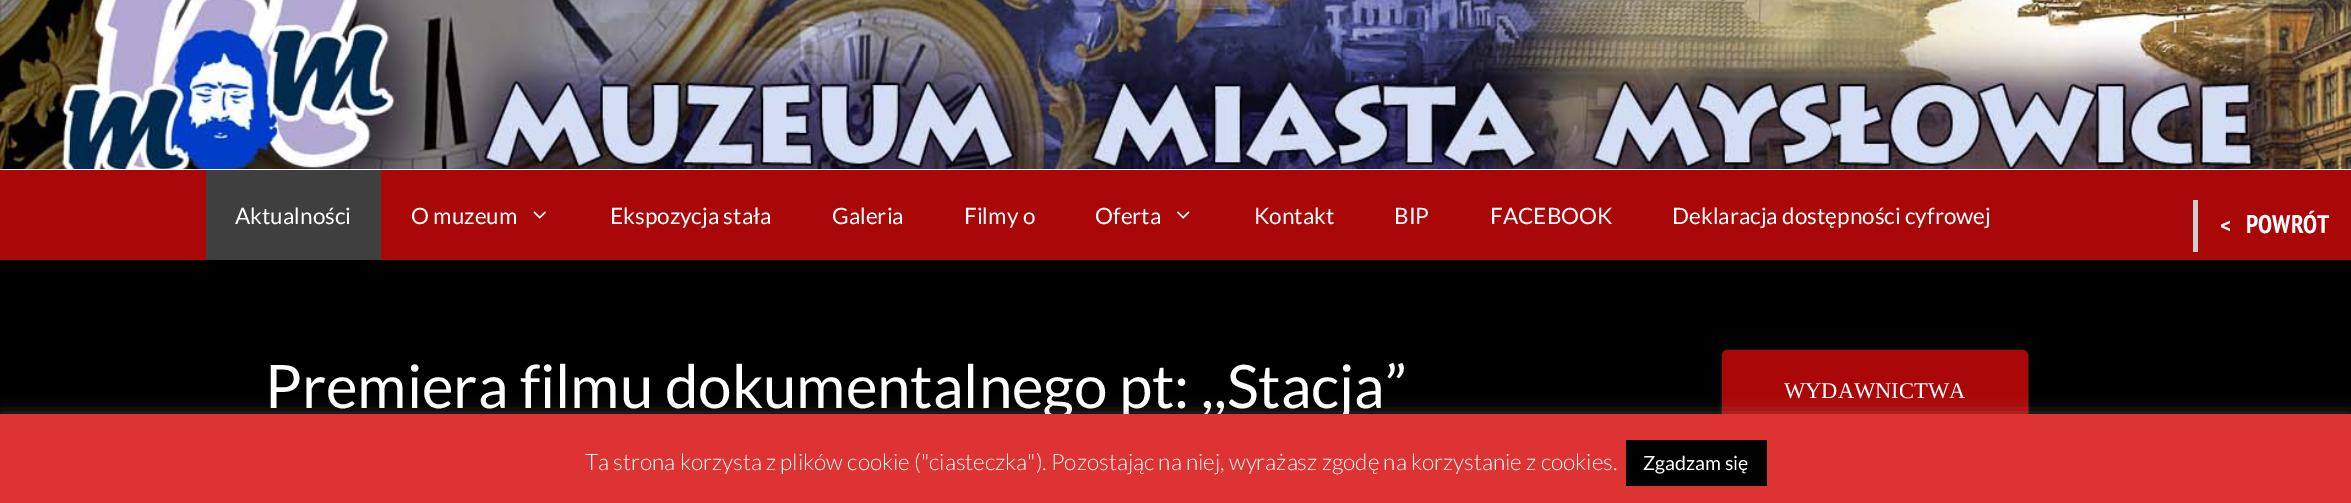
%!PS
<< /PageSize [2351 503] /PageUsesTransparency true >> setpagedevice
/f/fill load def
/s/stroke load def
/q/gsave load def
/Q_/grestore load def
/w/setlinewidth load def
/C { dup -16 bitshift 255 div exch dup -8 bitshift 255 and 255 div exch 255 and 255 div setrgbcolor } def
/F { [ exch dup neg 0 0 3 -1 roll 0 0 ] selectfont } def
/T { moveto show } def
/R { rectfill } def
/A { dup .setfillconstantalpha .setstrokeconstantalpha } def
/Q { 5 dict begin { /r /h /w /y /x } { exch def } forall
  x r add y moveto x w add y 2 copy h add r arct x w add y h add x 1 index r arct
  x y h add x y r arct x y 2 copy exch w add exch r arct closepath end } def
/S { 12 dict begin { /a /b /q /h /w /y /x } { exch def } forall gsave /was 0 def
  9 -2 -9 { dup b mul 4 div /e exch def 1 sub .425 mul 2.718 exch exp 1 add a .99 .min exch div /now exch def
    1 1 now sub 1 was sub div sub A /was now def
    w h .min e 2 mul add 0 gt { x e sub y e sub w e 2 mul add h e 2 mul add
      q e add b .6 mul add w h .min 2 div e add .min 0 .max Q fill } if } for grestore end } def
/I { 5 dict begin { /h /w /y /x /name } { exch def } forall
  gsave x y translate w h scale
  w h 8 [w 0 0 h 0 0] name (r) file false 3 colorimage grestore end } def
0 .pushpdf14devicefilter
0 503 translate 1 -1 scale
4 setmiterlimit
16#000000 C
0 0 2351 503 R
16#FFFFFF C
0 169 2351 1 R
(1.rgb) 0 0 2351 169 I
16#AA0808 C
0 170 2351 90 R
16#3F3F3F C
206 170 175 90 R
/Lato-Regular 22.5 F
16#FFFFFF C
(Aktualności) 235 224 T
(O muzeum) 411 224 T
(2.rgb) 533 211 13 8 I
(Ekspozycja stała) 610 224 T
(Galeria) 832 224 T
(Filmy o) 964 224 T
(Oferta) 1095 224 T
(3.rgb) 1177 211 13 8 I
(Kontakt) 1254 224 T
(BIP) 1394 224 T
(FACEBOOK) 1490 224 T
(Deklaracja dostępności cyfrowej) 1672 224 T
16#CECECE C
2193 200 5 52 R
/Cabin-Bold 25.5 F
16#FFFFFF C
(<) 2220 233 T
/PTSansNarrow-Bold 25.5 F
(POWRÓT) 2246 233 T
/Lato-Regular 60 F
(Premiera filmu dokumentalnego pt: ,,Stacja”) 265 408 T
16#333333 C
1722 350 306 81 6 1.5 1 S
16#AA0808 C
1723.5 351.5 303 78 4.5 Q q f Q_
3 w
s
/LiberationSerif-Regular 22.5 F
16#FFFFFF C
(WYDAWNICTWA) 1784 398 T
16#ACABAB C
0 413 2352 90 0 7.5 .3 S
16#DD3333 C
0 414 2351 89 R
/Lato-Light 22.5 F
16#FFFFFF C
(Ta strona korzysta z plików cookie \("ciasteczka"\). Pozostając na niej, wyrażasz zgodę na korzystanie z cookies.) 585 470 T
16#000000 C
1626 440 141 46 R
/Lato-Regular 19.5 F
16#FFFFFF C
(Zgadzam się) 1643 470 T
.poppdf14devicefilter showpage
